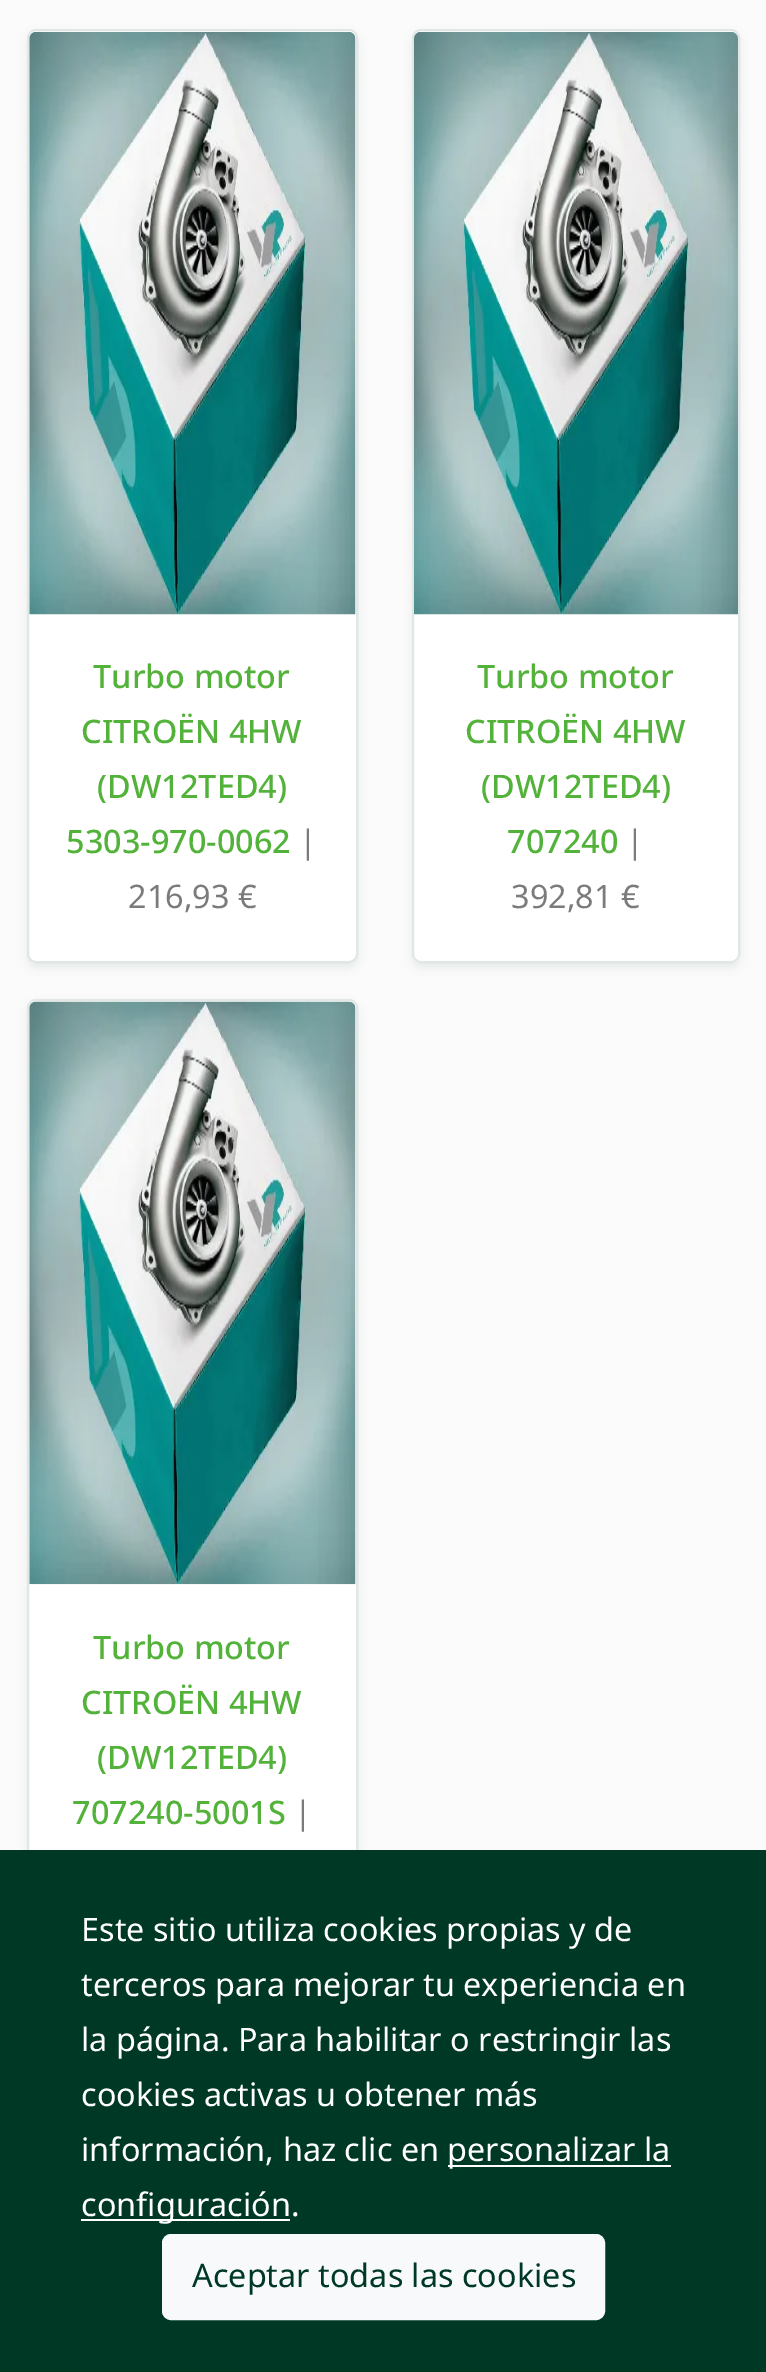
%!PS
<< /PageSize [766 2372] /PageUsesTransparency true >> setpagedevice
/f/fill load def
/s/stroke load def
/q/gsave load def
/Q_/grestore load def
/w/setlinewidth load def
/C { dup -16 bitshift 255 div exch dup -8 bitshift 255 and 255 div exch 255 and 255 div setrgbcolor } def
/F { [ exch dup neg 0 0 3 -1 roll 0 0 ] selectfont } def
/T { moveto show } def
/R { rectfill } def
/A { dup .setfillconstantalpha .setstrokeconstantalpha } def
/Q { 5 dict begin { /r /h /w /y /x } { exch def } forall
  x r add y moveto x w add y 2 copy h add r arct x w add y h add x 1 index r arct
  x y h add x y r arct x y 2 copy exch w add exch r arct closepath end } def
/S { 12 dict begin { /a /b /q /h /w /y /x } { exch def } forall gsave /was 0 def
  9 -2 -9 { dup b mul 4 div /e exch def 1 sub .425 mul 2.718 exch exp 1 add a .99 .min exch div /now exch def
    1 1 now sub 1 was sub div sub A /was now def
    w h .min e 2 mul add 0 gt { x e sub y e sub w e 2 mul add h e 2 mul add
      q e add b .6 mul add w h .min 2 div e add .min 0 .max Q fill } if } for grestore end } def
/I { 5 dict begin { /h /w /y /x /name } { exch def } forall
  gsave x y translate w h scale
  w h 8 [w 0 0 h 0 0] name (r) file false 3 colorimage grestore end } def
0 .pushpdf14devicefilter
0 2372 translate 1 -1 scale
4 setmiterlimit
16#FBFBFB C
0 0 766 2372 R
16#003826 C
27 34 331 934 9 4.5 .07 S
16#FFFFFF C
27 29 331 934 9 Q f
0.12 A
16#003826 C
2 w
28 30 329 932 8 Q s
1 A
(1.rgb) 29 31 327 584 I
/NotoSans-Medium 32.4 F
16#53B23A C
(Turbo motor) 93 688 T
(CITROËN 4HW) 81 743 T
(\(DW12TED4\)) 97 798 T
(5303-970-0062) 66 853 T
/NotoSans-Regular 32.4 F
16#7B7B7B C
(|) 299 853 T
(216,93 €) 128 908 T
16#003826 C
412 34 328 934 9 4.5 .07 S
16#FFFFFF C
412 29 328 934 9 Q f
0.12 A
16#003826 C
413 30 326 932 8 Q s
1 A
(2.rgb) 414 31 324 584 I
/NotoSans-Medium 32.4 F
16#53B23A C
(Turbo motor) 477 688 T
(CITROËN 4HW) 465 743 T
(\(DW12TED4\)) 481 798 T
(707240) 507 853 T
/NotoSans-Regular 32.4 F
16#7B7B7B C
(|) 626 853 T
(392,81 €) 511 908 T
16#003826 C
27 1004 331 936 9 4.5 .07 S
16#FFFFFF C
27 999 331 936 9 Q f
0.12 A
16#003826 C
28 1000 329 934 8 Q s
1 A
(3.rgb) 29 1001 327 584 I
/NotoSans-Medium 32.4 F
16#53B23A C
(Turbo motor) 93 1659 T
(CITROËN 4HW) 81 1714 T
(\(DW12TED4\)) 97 1769 T
(707240-5001S) 72 1824 T
/NotoSans-Regular 32.4 F
16#7B7B7B C
(|) 294 1824 T
16#003826 C
0 1850 766 522 R
16#FFFFFF C
(Este sitio utiliza cookies propias y de) 81 1941 T
(terceros para mejorar tu experiencia en) 81 1996 T
(la página. Para habilitar o restringir las) 81 2051 T
(cookies activas u obtener más) 81 2106 T
(información, haz clic en) 81 2161 T
448 2165 223 2 R
(personalizar la) 447 2161 T
81 2219 209 2 R
(configuración.) 81 2216 T
16#F8F9FA C
163 2235 441 84 8 Q q f Q_
s
16#003826 C
(Aceptar todas las cookies) 192 2287 T
.poppdf14devicefilter showpage
